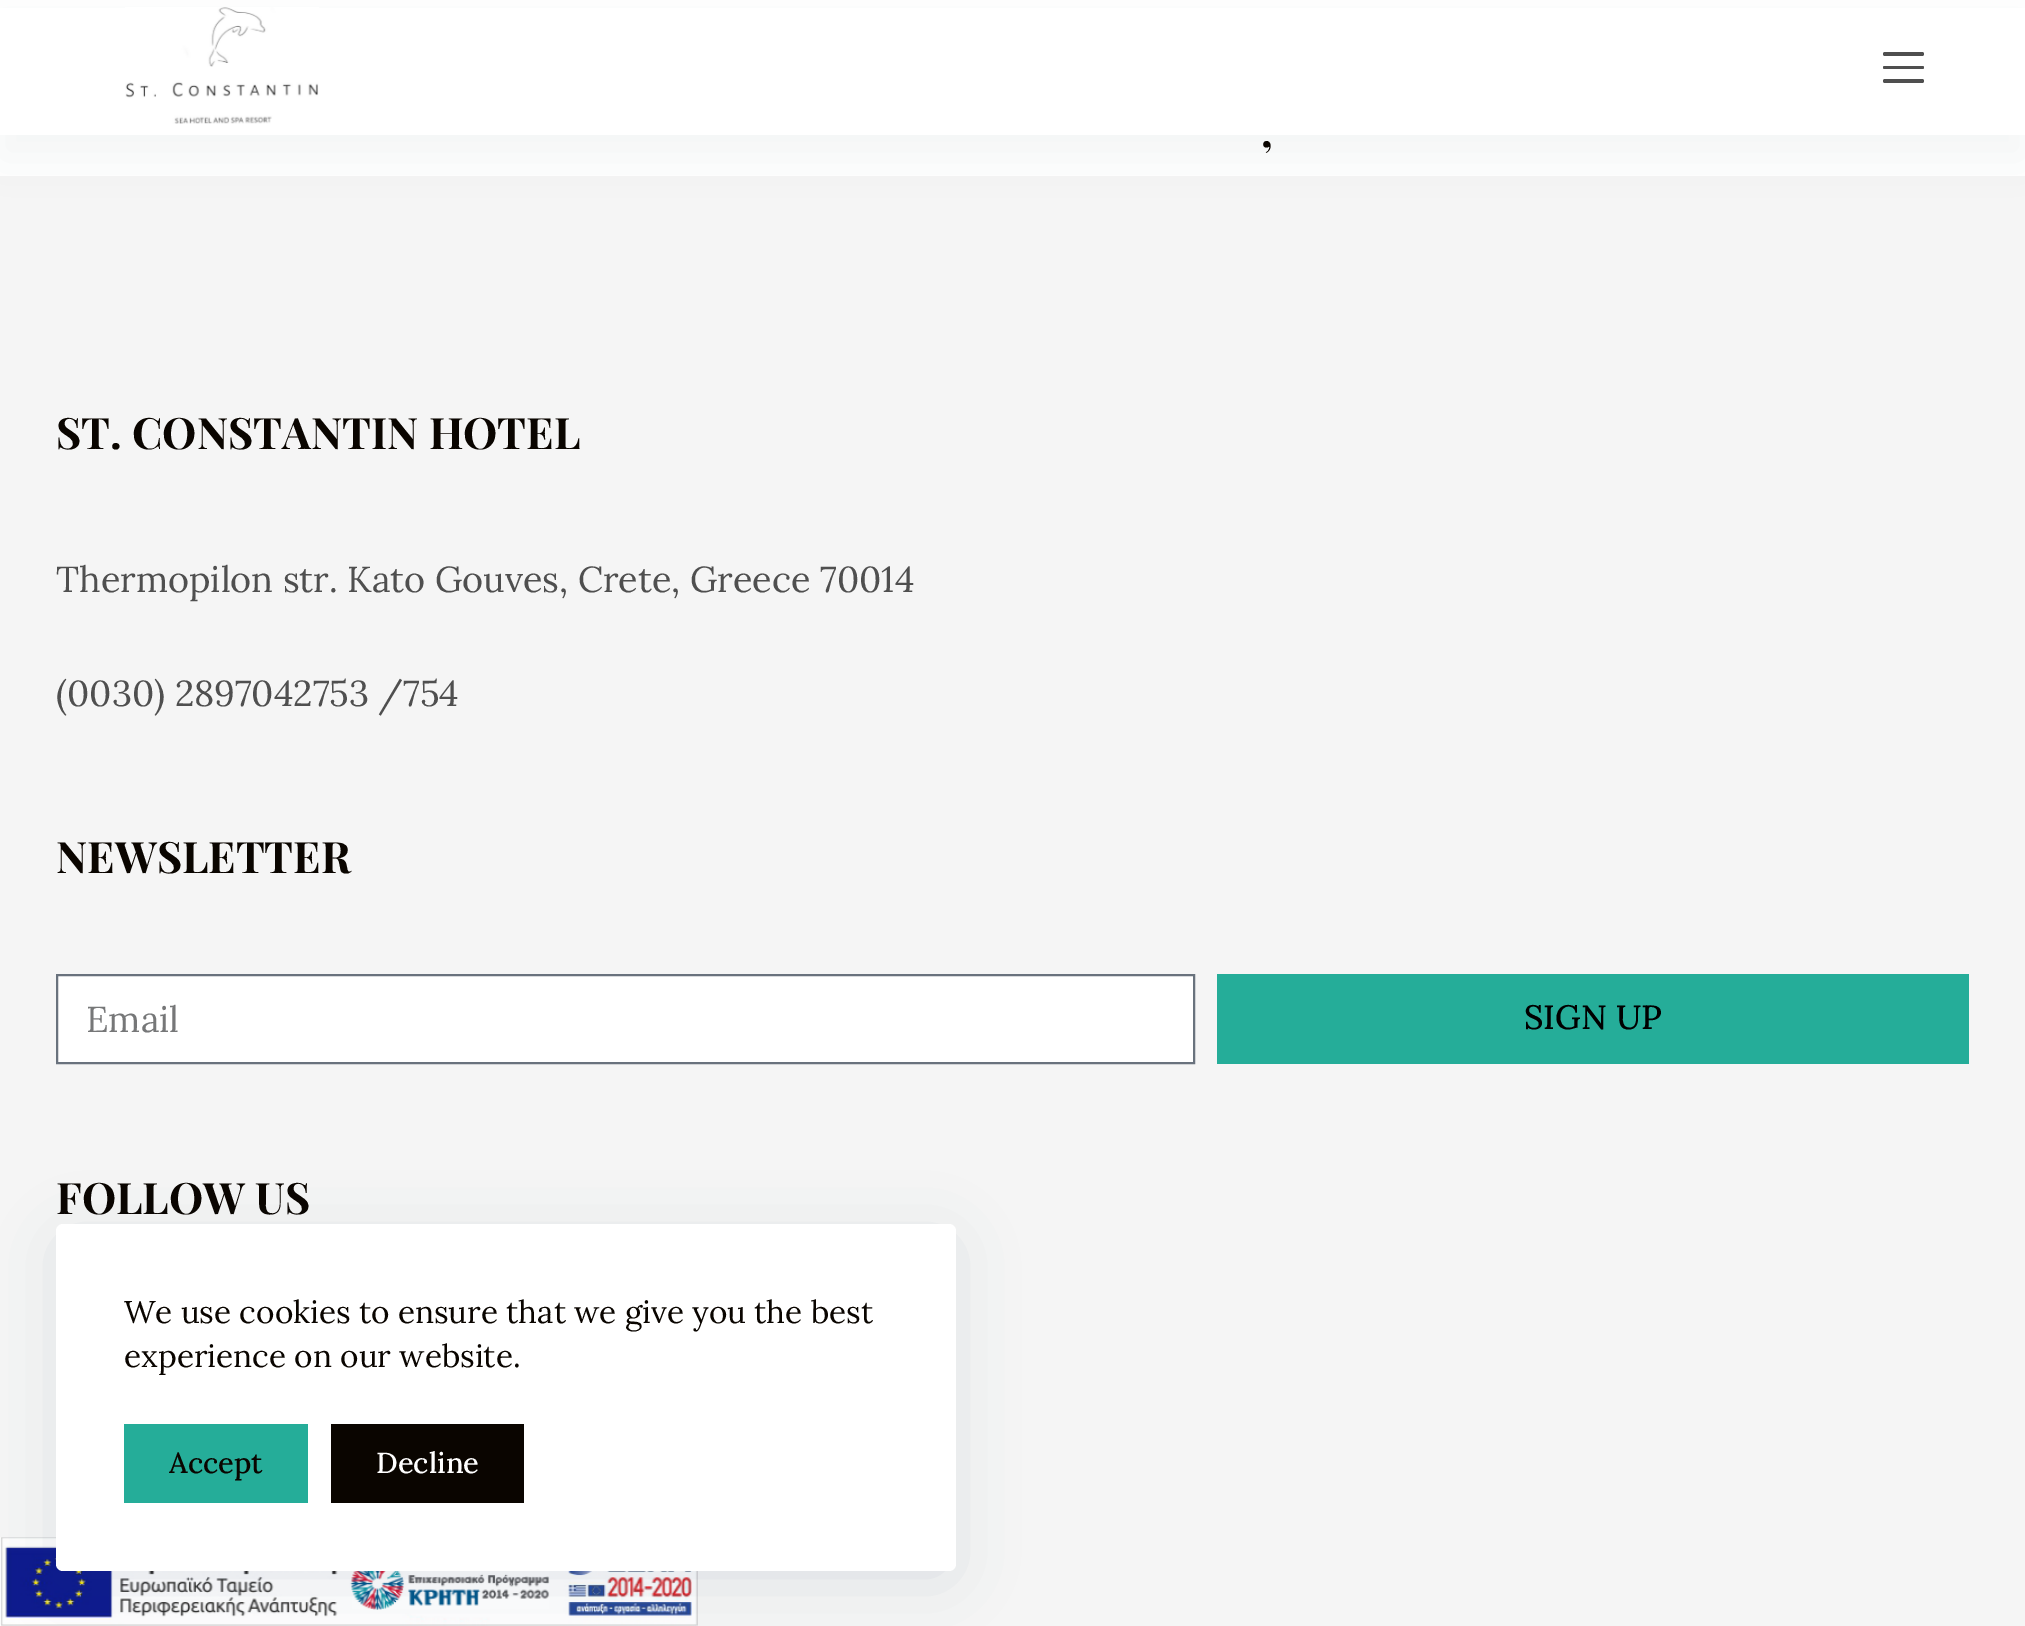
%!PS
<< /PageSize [2025 1626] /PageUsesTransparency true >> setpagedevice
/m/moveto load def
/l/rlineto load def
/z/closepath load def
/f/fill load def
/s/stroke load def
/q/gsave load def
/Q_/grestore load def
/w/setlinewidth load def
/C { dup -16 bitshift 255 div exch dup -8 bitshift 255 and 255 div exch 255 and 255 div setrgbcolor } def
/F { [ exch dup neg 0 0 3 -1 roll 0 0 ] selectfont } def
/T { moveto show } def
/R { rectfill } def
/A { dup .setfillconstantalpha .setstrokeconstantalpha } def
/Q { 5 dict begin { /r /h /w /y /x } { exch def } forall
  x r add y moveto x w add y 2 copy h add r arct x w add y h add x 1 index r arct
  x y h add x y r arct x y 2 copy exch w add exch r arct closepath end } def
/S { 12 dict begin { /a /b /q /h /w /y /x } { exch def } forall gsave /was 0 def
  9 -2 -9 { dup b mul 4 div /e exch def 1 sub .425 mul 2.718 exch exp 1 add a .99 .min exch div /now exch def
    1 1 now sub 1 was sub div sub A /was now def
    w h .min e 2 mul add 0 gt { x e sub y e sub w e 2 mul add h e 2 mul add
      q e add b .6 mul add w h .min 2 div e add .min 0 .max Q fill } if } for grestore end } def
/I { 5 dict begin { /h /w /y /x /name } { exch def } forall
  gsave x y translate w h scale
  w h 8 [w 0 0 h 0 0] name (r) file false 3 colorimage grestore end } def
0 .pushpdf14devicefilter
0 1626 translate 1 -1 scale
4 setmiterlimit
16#FFFFFF C
0 0 2025 1626 R
16#F5F5F5 C
0 176 2025 1450 R
16#2C3E50 C
0 23 2025 135 0 22.5 .05 S
16#FFFFFF C
0 8 2025 127 R
(1.rgb) 125 7 194 117 I
16#4F4F4F C
1883 52 41 4 2 Q f
1883 66 41 3 1.5 Q f
1883 79 41 4 2 Q f
/PlayfairDisplay-Bold 43.25 F
16#0A0500 C
(,) 1261 147 T
(ST. CONSTANTIN HOTEL) 56 449 T
/Lora-Regular 36 F
16#4F4F4F C
(Thermopilon str. Kato Gouves, Crete, Greece 70014) 56 592 T
(\(0030\) 2897042753 /754) 56 706 T
/PlayfairDisplay-Bold 43.25 F
16#0A0500 C
(NEWSLETTER) 56 873 T
16#FFFFFF C
57 975 m 1137 0 l 0 88 l -1137 0 l z q f Q_
16#69727D C
2 w
s
/Lora-Regular 36 F
16#767778 C
(Email) 86 1032 T
16#25AD99 C
1217 974 752 90 R
/Lora-Medium 33.75 F
16#000000 C
(SIGN UP) 1524 1029 T
/PlayfairDisplay-Bold 43.25 F
16#0A0500 C
(FOLLOW US) 56 1214 T
(2.rgb) 0 1537 698 89 I
16#223865 C
68 1247 877 324 0 34 .15 S
16#FFFFFF C
56 1224 900 347 7 Q f
/Lora-Regular 31.5 F
16#0A0500 C
(We use cookies to ensure that we give you the best) 124 1323 T
(experience on our website.) 124 1367 T
16#25AD99 C
124 1424 184 79 R
/Lora-Medium 29 F
16#0A0500 C
(Accept) 169 1473 T
331 1424 193 79 R
16#FFFFFF C
(Decline) 376 1473 T
.poppdf14devicefilter showpage
